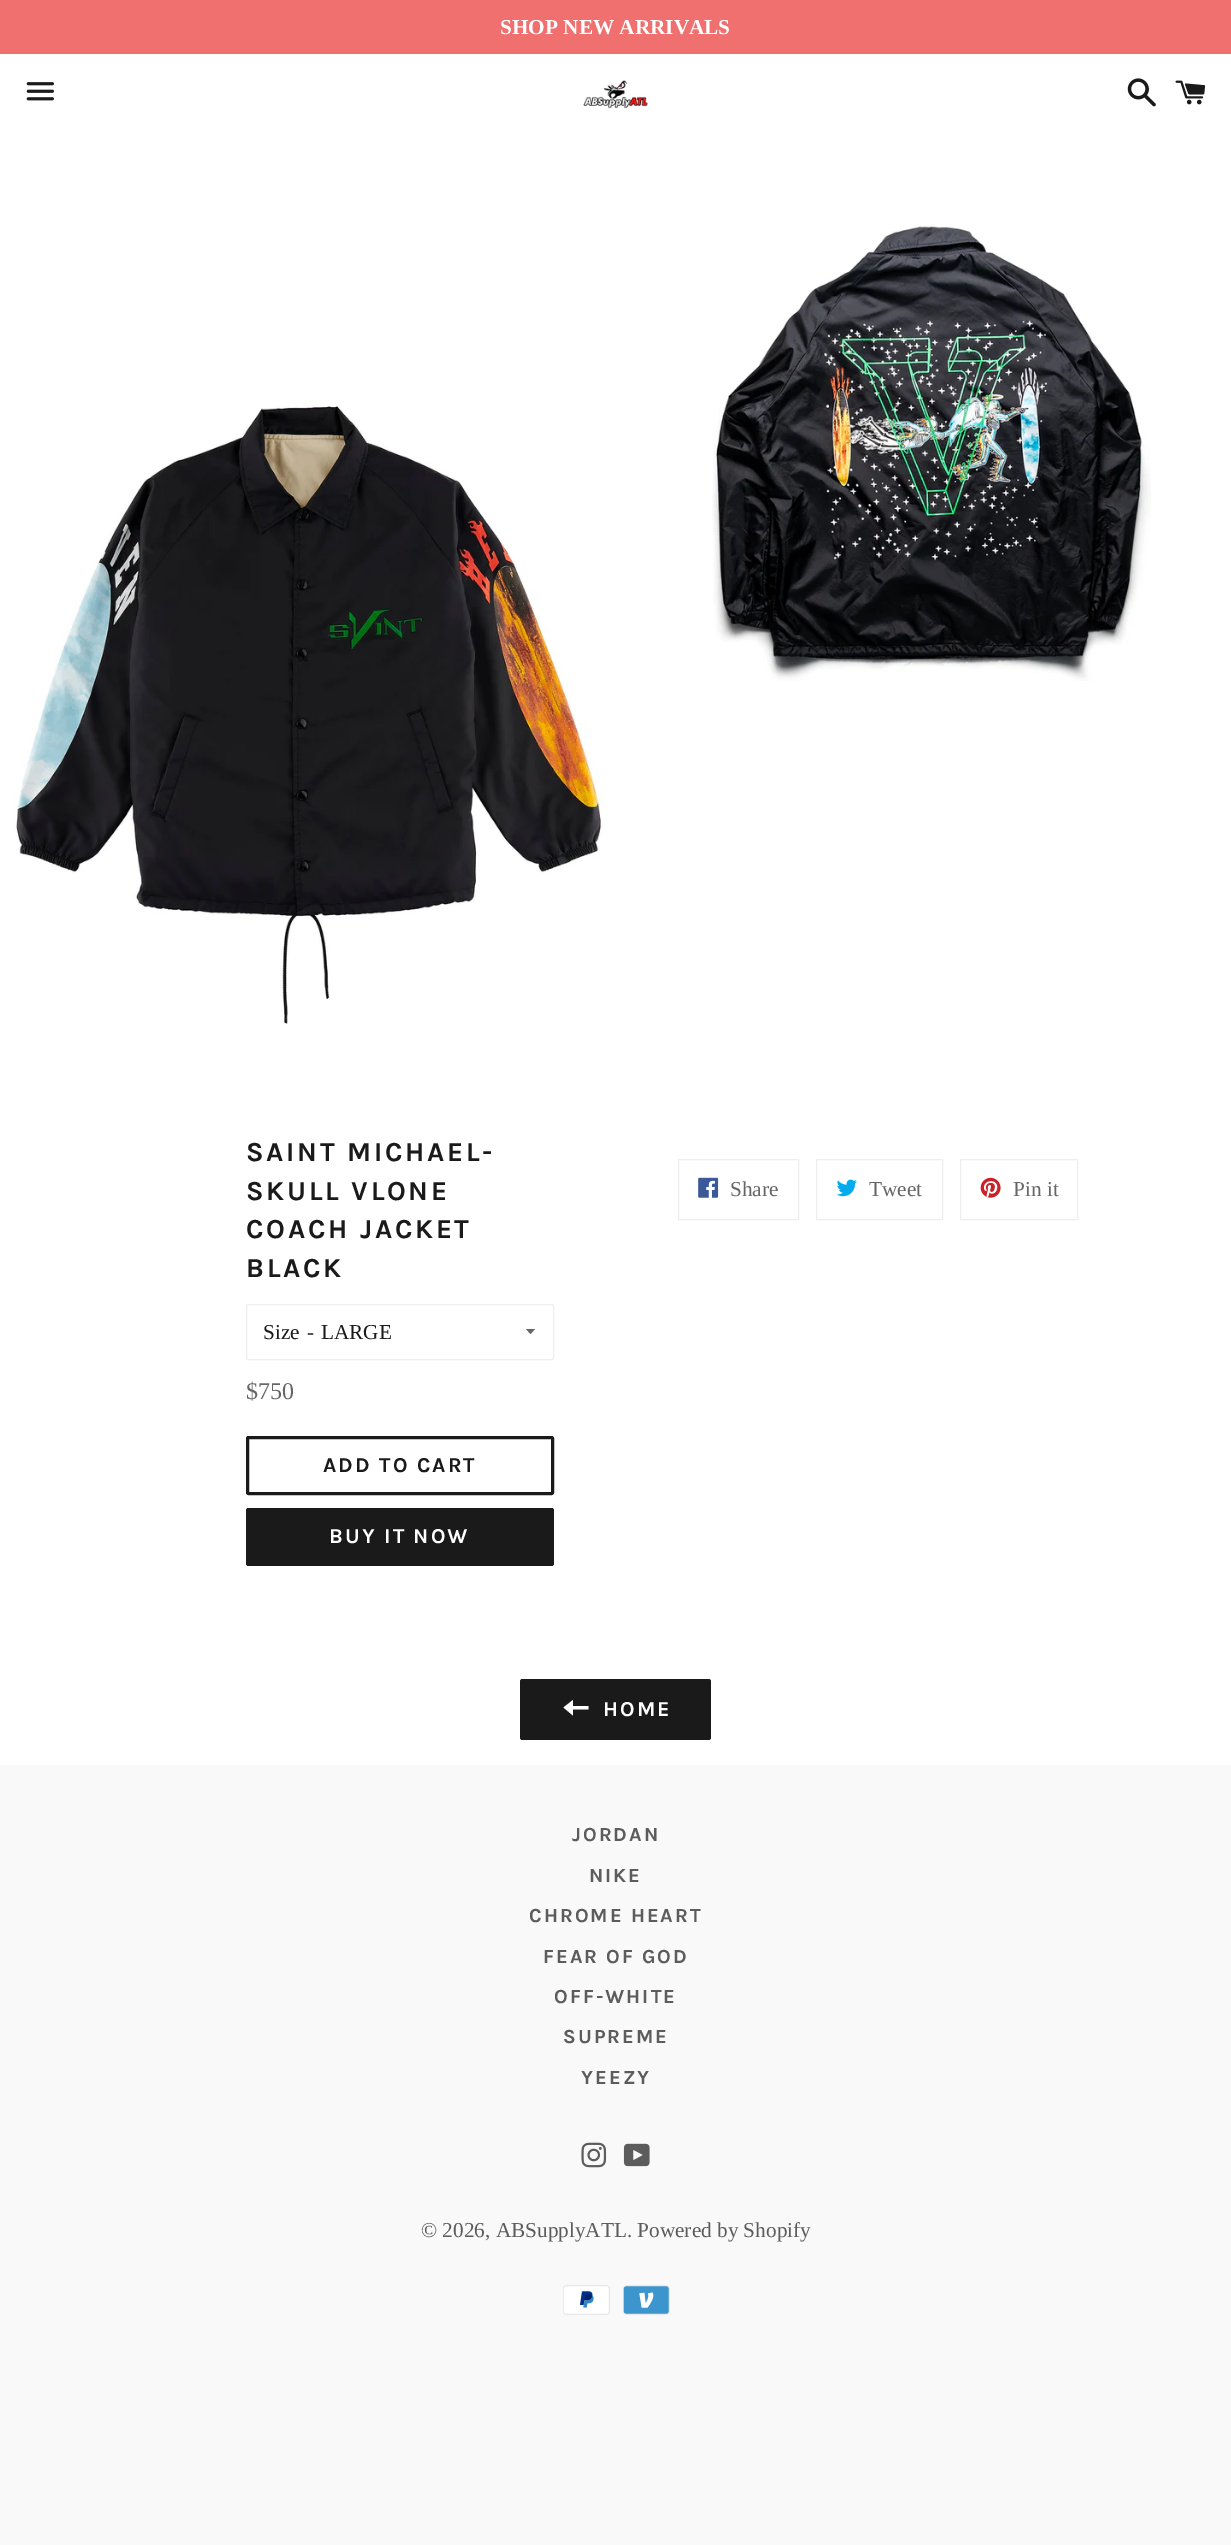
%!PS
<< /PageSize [1231 2545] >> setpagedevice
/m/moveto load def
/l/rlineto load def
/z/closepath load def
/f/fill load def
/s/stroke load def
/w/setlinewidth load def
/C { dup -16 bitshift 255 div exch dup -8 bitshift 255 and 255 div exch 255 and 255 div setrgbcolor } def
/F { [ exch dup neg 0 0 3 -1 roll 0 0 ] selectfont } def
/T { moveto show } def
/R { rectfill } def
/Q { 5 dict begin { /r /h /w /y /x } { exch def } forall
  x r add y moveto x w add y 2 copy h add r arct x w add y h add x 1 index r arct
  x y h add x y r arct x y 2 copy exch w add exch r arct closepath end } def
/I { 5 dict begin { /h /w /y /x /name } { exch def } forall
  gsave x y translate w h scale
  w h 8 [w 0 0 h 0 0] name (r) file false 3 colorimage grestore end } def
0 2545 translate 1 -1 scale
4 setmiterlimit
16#F9F9F9 C
0 0 1231 2545 R
16#FFFFFF C
0 54 1231 1711 R
16#F07070 C
0 0 1231 54 R
/LiberationSerif-Bold 21.25 F
16#FFFFFF C
(SHOP NEW ARRIVALS) 500 34 T
(1.rgb) 26 82 28 19 I
(2.rgb) 583 80 65 29 I
(3.rgb) 1127 78 29 29 I
(4.rgb) 1175 80 31 25 I
(5.rgb) 14 405 589 619 I
(6.rgb) 712 224 439 457 I
/Karla-Bold 27.5 F
16#1A1A1A C
246 1161 m 2.75 0 (SAINT MICHAEL-) ashow
246 1200 m 2.75 0 (SKULL VLONE) ashow
246 1238 m 2.75 0 (COACH JACKET) ashow
246 1277 m 2.75 0 (BLACK) ashow
16#EEEEEE C
246.5 1304.5 307 55 2 Q s
/LiberationSerif-Regular 21.25 F
16#1A1A1A C
(Size) 263 1339 T
(-) 307 1339 T
16#666666 C
526 1329 m 4.5 5 l 4.5 -5 l z f
16#1A1A1A C
(LARGE) 321 1339 T
/LiberationSerif-Regular 24 F
16#666666 C
($750) 246 1399 T
16#1A1A1A C
3 w
247.5 1437.5 305 56 1 Q s
/Karla-Bold 21.25 F
323 1472 m 2.1 0 (ADD TO CART) ashow
246 1508 308 58 2.5 Q f
16#FFFFFF C
329 1543 m 2.1 0 (BUY IT NOW) ashow
16#EEEEEE C
1 w
678.5 1159.5 120 60 rectstroke
(7.rgb) 698 1177 21 21 I
/LiberationSerif-Regular 21.25 F
16#666666 C
(Share) 730 1196 T
16#EEEEEE C
816.5 1159.5 126 60 rectstroke
(8.rgb) 836 1179 21 18 I
16#666666 C
(Tweet) 869 1196 T
16#EEEEEE C
960.5 1159.5 117 60 rectstroke
(9.rgb) 980 1177 21 21 I
16#666666 C
(Pin it) 1013 1196 T
16#1A1A1A C
520 1679 191 61 2.5 Q f
16#FFFFFF C
573 1706 m 0 -6 l -9.5 7.5 l 9.5 8 l 0 -6 l 15.5 0 l 0 -3.5 l z f
/Karla-Bold 21.25 F
603 1716 m 2.1 0 (HOME) ashow
/Karla-Bold 20 F
16#5C5C5C C
572 1841 m 2 0 (JORDAN) ashow
589 1882 m 2 0 (NIKE) ashow
529 1922 m 2 0 (CHROME HEART) ashow
543 1963 m 2 0 (FEAR OF GOD) ashow
554 2003 m 2 0 (OFF-WHITE) ashow
563 2043 m 2 0 (SUPREME) ashow
581 2084 m 2 0 (YEEZY) ashow
(10.rgb) 581 2142 26 26 I
(11.rgb) 623 2143 27 24 I
/LiberationSerif-Regular 21.25 F
(© 2026, ABSupplyATL. Powered by Shopify) 421 2237 T
(12.rgb) 563 2285 47 30 I
(13.rgb) 623 2285 47 30 I
showpage
